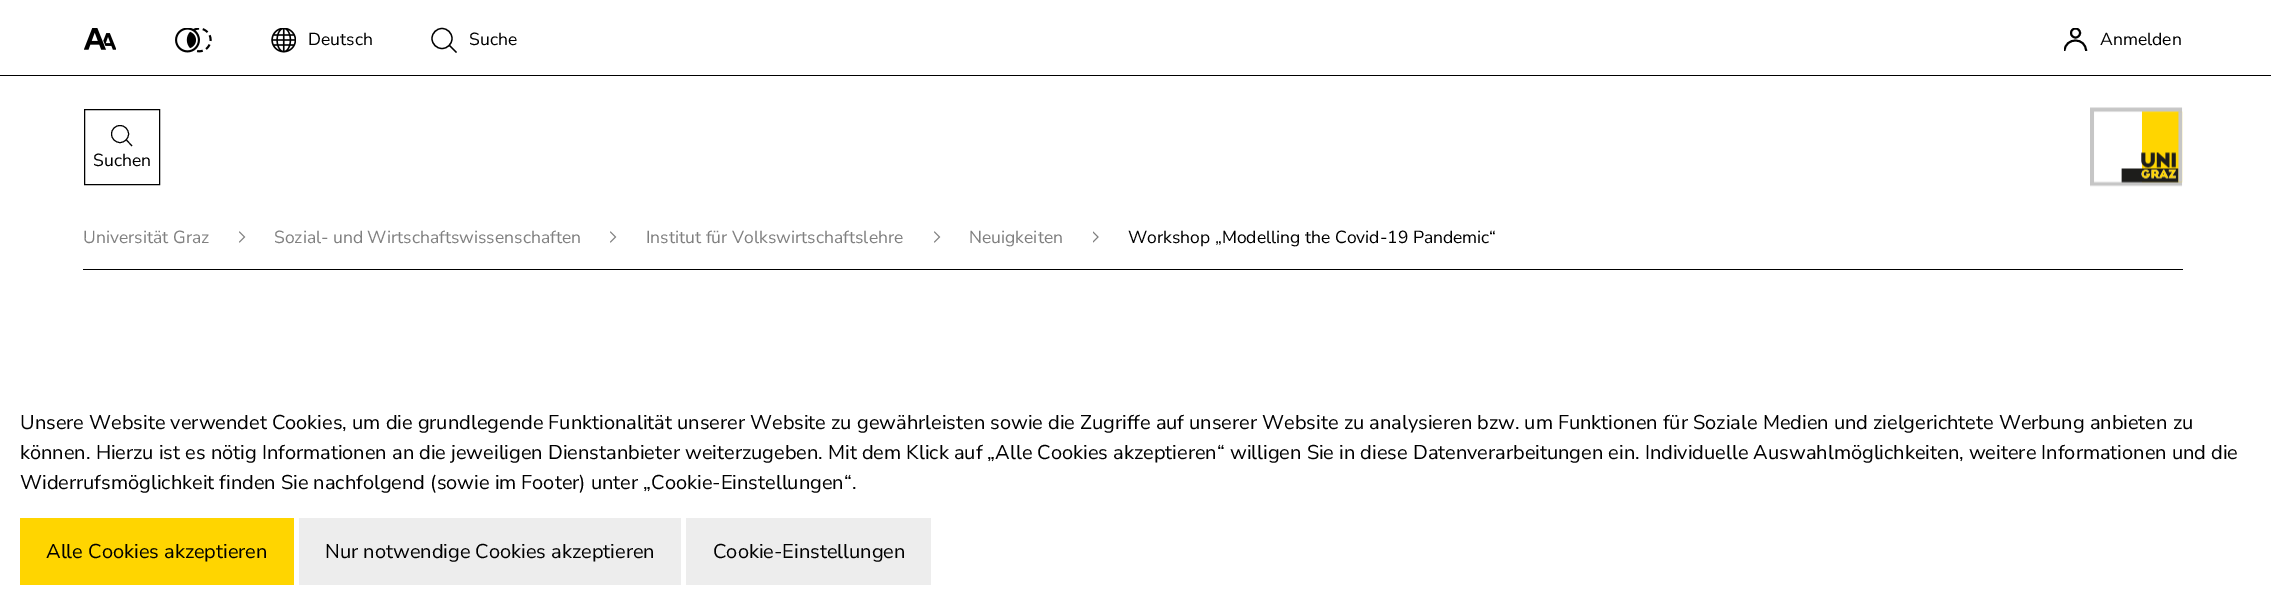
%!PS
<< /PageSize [2271 604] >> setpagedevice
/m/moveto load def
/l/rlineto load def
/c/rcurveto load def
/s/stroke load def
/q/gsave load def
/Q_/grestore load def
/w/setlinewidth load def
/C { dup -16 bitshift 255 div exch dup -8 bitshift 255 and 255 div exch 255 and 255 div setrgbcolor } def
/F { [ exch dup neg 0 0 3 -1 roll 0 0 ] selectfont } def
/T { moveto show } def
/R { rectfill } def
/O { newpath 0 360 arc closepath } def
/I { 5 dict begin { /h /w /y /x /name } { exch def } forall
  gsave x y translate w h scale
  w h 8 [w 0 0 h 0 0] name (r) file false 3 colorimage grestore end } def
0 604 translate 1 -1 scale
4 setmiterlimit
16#FFFFFF C
0 0 2271 604 R
16#000000 C
0 75 2271 1 R
(1.rgb) 84 28 32 22 I
(2.rgb) 175 28 37 25 I
(3.rgb) 271 28 25 25 I
/NunitoSans-Regular 17.5 F
(Deutsch) 308 45 T
1.2 w
442 38.5 10 O s
449.5 45.5 m 7 7 l s
(Suche) 469 45 T
q
2064 28 24 23 rectclip
1.9 w
2064.5 51 m .5 -14 21.5 -14 21.5 0 c s
2075.5 33 4.5 O s
Q_
(Anmelden) 2100 45 T
1 w
84.5 109.5 75 75 rectstroke
120 134 8.5 O s
126.5 140 m 5.5 6 l s
(Suchen) 93 166 T
(4.rgb) 2090 107 93 80 I
83 269 2100 1 R
16#808080 C
(Universität Graz) 83 243 T
1 setlinecap
239.5 242 m 5 -5 l -5 -5 l s
(Sozial- und Wirtschaftswissenschaften) 274 243 T
610.5 242 m 5 -5 l -5 -5 l s
(Institut für Volkswirtschaftslehre) 646 243 T
934.5 242 m 5 -5 l -5 -5 l s
(Neuigkeiten) 969 243 T
q
1093 231 6 12 rectclip
1093 242 m 5 -5 l -5 -5 l s
Q_
16#000000 C
(Workshop „Modelling the Covid-19 Pandemic“) 1128 243 T
/NunitoSans-Regular 20 F
(Unsere Website verwendet Cookies, um die grundlegende Funktionalität unserer Website zu gewährleisten sowie die Zugriffe auf unserer Website zu analysieren bzw. um Funktionen für Soziale Medien und zielgerichtete Werbung anbieten zu) 20 429 T
(können. Hierzu ist es nötig Informationen an die jeweiligen Dienstanbieter weiterzugeben. Mit dem Klick auf „Alle Cookies akzeptieren“ willigen Sie in diese Datenverarbeitungen ein. Individuelle Auswahlmöglichkeiten, weitere Informationen und die) 20 459 T
(Widerrufsmöglichkeit finden Sie nachfolgend \(sowie im Footer\) unter „Cookie-Einstellungen“.) 20 489 T
16#FFD500 C
20 518 274 67 R
16#000000 C
(Alle Cookies akzeptieren) 46 558 T
16#EDEDED C
299 518 382 67 R
16#000000 C
(Nur notwendige Cookies akzeptieren) 325 558 T
16#EDEDED C
686 518 245 67 R
16#000000 C
(Cookie-Einstellungen) 713 558 T
showpage
